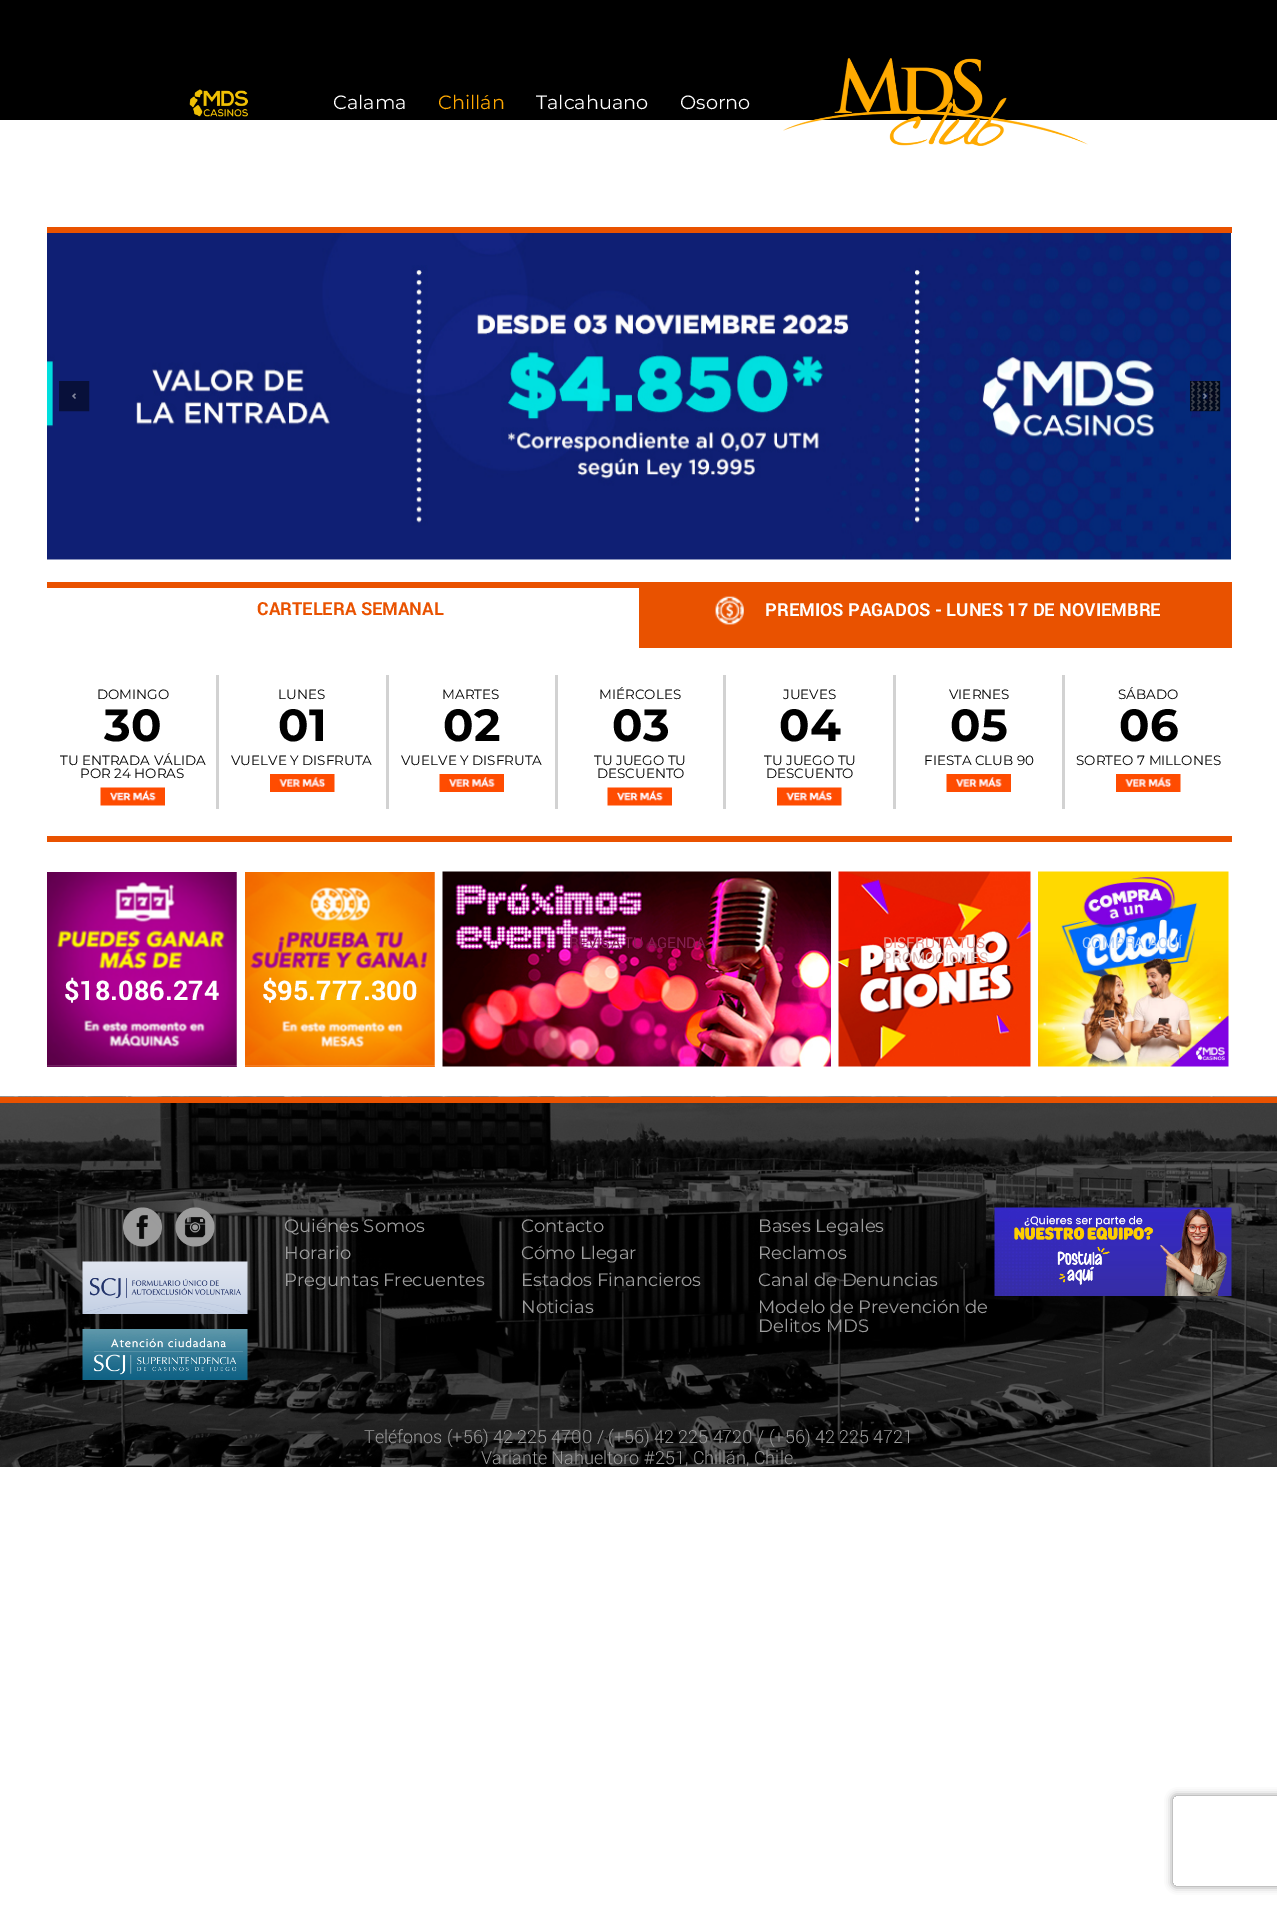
%!PS
<< /PageSize [1277 1906] /PageUsesTransparency true >> setpagedevice
/m/moveto load def
/l/rlineto load def
/c/rcurveto load def
/z/closepath load def
/q/gsave load def
/Q_/grestore load def
/w/setlinewidth load def
/C { dup -16 bitshift 255 div exch dup -8 bitshift 255 and 255 div exch 255 and 255 div setrgbcolor } def
/F { [ exch dup neg 0 0 3 -1 roll 0 0 ] selectfont } def
/T { moveto show } def
/R { rectfill } def
/A { dup .setfillconstantalpha .setstrokeconstantalpha } def
/Q { 5 dict begin { /r /h /w /y /x } { exch def } forall
  x r add y moveto x w add y 2 copy h add r arct x w add y h add x 1 index r arct
  x y h add x y r arct x y 2 copy exch w add exch r arct closepath end } def
/S { 12 dict begin { /a /b /q /h /w /y /x } { exch def } forall gsave /was 0 def
  9 -2 -9 { dup b mul 4 div /e exch def 1 sub .425 mul 2.718 exch exp 1 add a .99 .min exch div /now exch def
    1 1 now sub 1 was sub div sub A /was now def
    w h .min e 2 mul add 0 gt { x e sub y e sub w e 2 mul add h e 2 mul add
      q e add b .6 mul add w h .min 2 div e add .min 0 .max Q fill } if } for grestore end } def
/I { 5 dict begin { /h /w /y /x /name } { exch def } forall
  gsave x y translate w h scale
  w h 8 [w 0 0 h 0 0] name (r) file false 3 colorimage grestore end } def
0 .pushpdf14devicefilter
0 1906 translate 1 -1 scale
4 setmiterlimit
16#FFFFFF C
0 0 1277 1906 R
16#000000 C
0 0 1277 120 R
(1.rgb) 189 89 59 28 I
/Montserrat-Regular 19.25 F
16#FFFFFF C
(Calama) 333 109 T
16#FFA800 C
(Chillán) 438 109 T
16#FFFFFF C
(Talcahuano) 536 109 T
(Osorno) 680 109 T
(2.rgb) 783 58 305 88 I
16#E95200 C
47 227 1185 6 R
(3.rgb) 47 233 1184 327 I
16#08103A C
71 393 6 6 R
(4.rgb) 72 393 4 6 I
12 w
65 387 18 18 rectstroke
0.5 A
16#000000 C
1190 381 30 30 R
1 A
(5.rgb) 1191 381 28 30 I
0.5 A
1196 387 18 18 rectstroke
1 A
16#E95200 C
47 582 1185 6 R
47 836 1185 6 R
/Roboto-Bold 18 F
(CARTELERA SEMANAL) 257 615 T
639 588 593 60 R
(6.rgb) 715 596 29 29 I
16#FFFFFF C
(PREMIOS PAGADOS - LUNES 17 DE NOVIEMBRE) 765 616 T
/Montserrat-Regular 13.5 F
16#000000 C
(DOMINGO) 97 699 T
/Montserrat-Bold 45 F
(30) 104 741 T
/Montserrat-Regular 13.5 F
(TU ENTRADA VÁLIDA) 60 765 T
(POR 24 HORAS) 80 778 T
(7.rgb) 100 787 65 19 I
16#D2D2D2 C
216 675 3 134 R
16#000000 C
(LUNES) 278 699 T
/Montserrat-Bold 45 F
(01) 278 741 T
/Montserrat-Regular 13.5 F
(VUELVE Y DISFRUTA) 231 765 T
(8.rgb) 270 774 65 18 I
16#D2D2D2 C
386 675 3 134 R
16#000000 C
(MARTES) 442 699 T
/Montserrat-Bold 45 F
(02) 443 741 T
/Montserrat-Regular 13.5 F
(VUELVE Y DISFRUTA) 401 765 T
(9.rgb) 439 774 65 18 I
16#D2D2D2 C
555 675 3 134 R
16#000000 C
(MIÉRCOLES) 599 699 T
/Montserrat-Bold 45 F
(03) 612 741 T
/Montserrat-Regular 13.5 F
(TU JUEGO TU) 594 765 T
(DESCUENTO) 597 778 T
(7.rgb) 607 787 65 19 I
16#D2D2D2 C
723 675 3 134 R
16#000000 C
(JUEVES) 783 699 T
/Montserrat-Bold 45 F
(04) 779 741 T
/Montserrat-Regular 13.5 F
(TU JUEGO TU) 764 765 T
(DESCUENTO) 766 778 T
(10.rgb) 777 787 65 19 I
16#D2D2D2 C
893 675 3 134 R
16#000000 C
(VIERNES) 949 699 T
/Montserrat-Bold 45 F
(05) 950 741 T
/Montserrat-Regular 13.5 F
(FIESTA CLUB 90) 924 765 T
(9.rgb) 946 774 65 18 I
16#D2D2D2 C
1062 675 3 134 R
16#000000 C
(SÁBADO) 1118 699 T
/Montserrat-Bold 45 F
(06) 1119 741 T
/Montserrat-Regular 13.5 F
(SORTEO 7 MILLONES) 1076 765 T
(8.rgb) 1116 774 65 18 I
(11.rgb) 442 871 389 196 I
/Roboto-Regular 15 F
16#841F51 C
(REVISA TU AGENDA) 569 948 T
(12.rgb) 838 871 193 196 I
16#EB988F C
(DISFRUTA TUS) 883 948 T
16#DEBCB7 C
(PROMOCIONES) 882 963 T
(13.rgb) 1038 871 191 196 I
16#A5C9F9 C
(COMPRA AQUÍ) 1082 948 T
(14.rgb) 47 872 190 195 I
/Roboto-Bold 27 F
16#FFFFFF C
($18.086.274) 64 1000 T
(15.rgb) 47 1066 190 1 I
(16.rgb) 245 872 190 195 I
($95.777.300) 262 1000 T
(17.rgb) 245 1066 190 1 I
(18.rgb) 0 1096 1277 371 I
16#E95200 C
0 1097 1277 6 R
(19.rgb) 123 1207 39 40 I
(20.rgb) 175 1207 40 40 I
(21.rgb) 82 1261 166 53 I
(22.rgb) 82 1329 166 51 I
/Montserrat-Regular 18 F
16#9C9C9C C
(Quiénes Somos) 284 1232 T
(Horario) 284 1259 T
(Preguntas Frecuentes) 284 1286 T
(Contacto) 521 1232 T
(Cómo Llegar) 521 1259 T
(Estados Financieros) 521 1286 T
(Noticias) 521 1313 T
(Bases Legales) 758 1232 T
(Reclamos) 758 1259 T
(Canal de Denuncias) 758 1286 T
(Modelo de Prevención de) 758 1313 T
(Delitos MDS) 758 1332 T
(23.rgb) 994 1207 238 89 I
/Roboto-Light 18 F
(Teléfonos \(+56\) 42 225 4700 / \(+56\) 42 225 4720 / \(+56\) 42 225 4721) 364 1443 T
(Variante Nahueltoro #251, Chillán, Chile.) 481 1464 T
q
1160 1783 m 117 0 l 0 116 l -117 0 l z 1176 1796 m 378 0 l 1.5 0 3 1.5 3 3 c 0 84 l 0 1.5 -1.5 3 -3 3 c -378 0 l -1.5 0 -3 -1.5 -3 -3 c 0 -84 l 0 -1.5 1.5 -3 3 -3 c z eoclip newpath
16#808080 C
1173 1796 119 90 3 4 1 S
Q_
.poppdf14devicefilter showpage
